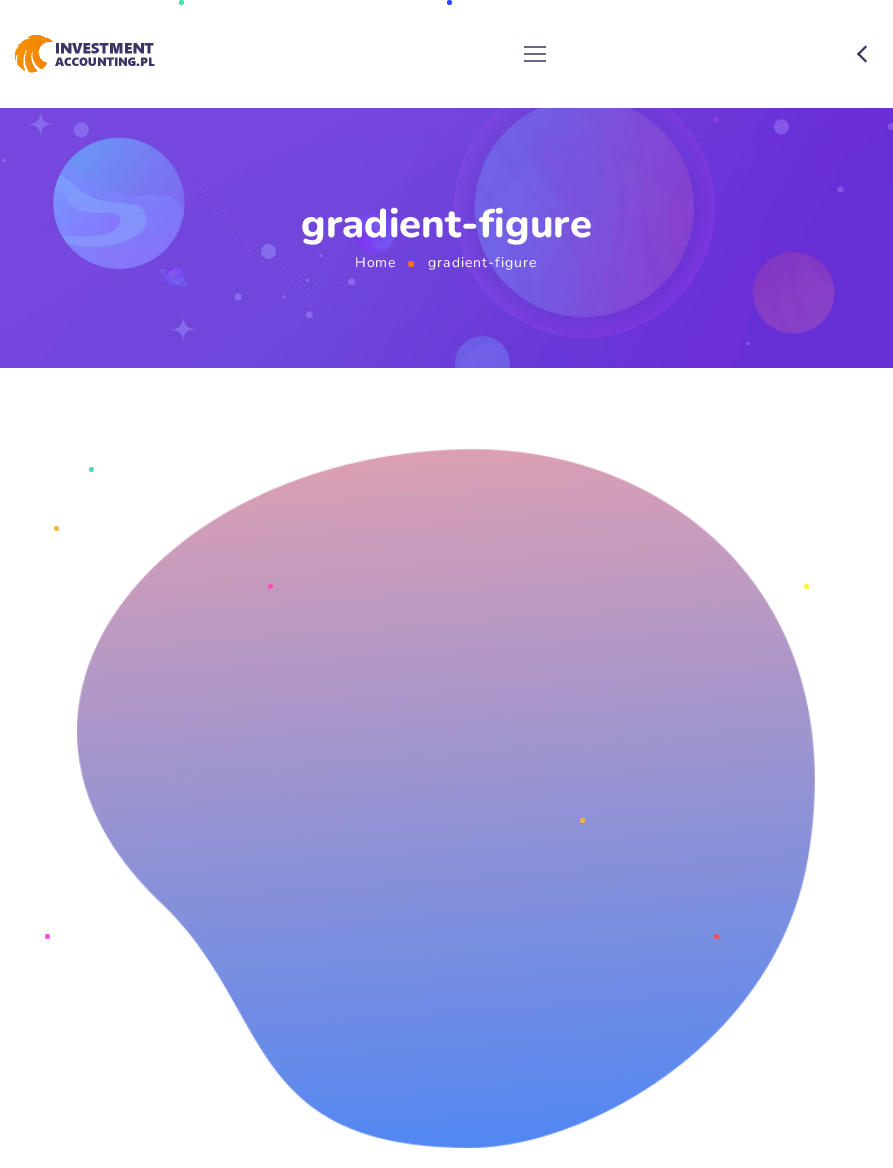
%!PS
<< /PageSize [893 1168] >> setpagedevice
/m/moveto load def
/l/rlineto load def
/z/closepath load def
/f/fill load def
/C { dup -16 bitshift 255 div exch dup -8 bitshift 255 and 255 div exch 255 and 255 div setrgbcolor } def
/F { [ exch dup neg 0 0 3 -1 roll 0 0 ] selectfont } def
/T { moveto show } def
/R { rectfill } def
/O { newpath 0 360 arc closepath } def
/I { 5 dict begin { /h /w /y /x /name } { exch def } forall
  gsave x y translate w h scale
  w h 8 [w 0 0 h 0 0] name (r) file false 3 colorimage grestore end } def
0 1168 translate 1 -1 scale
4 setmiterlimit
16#FFFFFF C
0 0 893 1168 R
16#3DE4A3 C
181.5 2.5 2.5 O f
16#2C4AFF C
449.5 2.5 2.5 O f
(2.rgb) 0 108 893 260 I
16#8F3DE4 C
716.5 119.5 2.5 O f
(3.rgb) 77 449 738 699 I
16#5ED5CB C
91.5 469.5 2.5 O f
16#FFB739 C
56.5 528.5 2.5 O f
16#FC4FB1 C
270.5 586.5 2.5 O f
16#FFF339 C
806.5 586.5 2.5 O f
16#FFB739 C
582.5 820.5 2.5 O f
16#FC4FDD C
47.5 936.5 2.5 O f
16#FC4F4F C
716.5 936.5 2.5 O f
(1.rgb) 15 35 140 38 I
16#696687 C
524 53 22 2 R
524 46 22 2 R
524 60 22 2 R
16#3B3663 C
857 54 m 8.5 -8.5 l 1.5 1.5 l -8.5 8.5 l z f
858.5 52.5 m 8.5 8.5 l -1.5 1.5 l -8.5 -8.5 l z f
/Nunito-ExtraBold 40 F
16#FFFFFF C
(gradient-figure) 301 237 T
/Nunito-Regular 14 F
355 267 m 1 0 (Home) ashow
16#FF7426 C
411 264 3 O f
16#FFFFFF C
428 267 m 1 0 (gradient-figure) ashow
showpage
